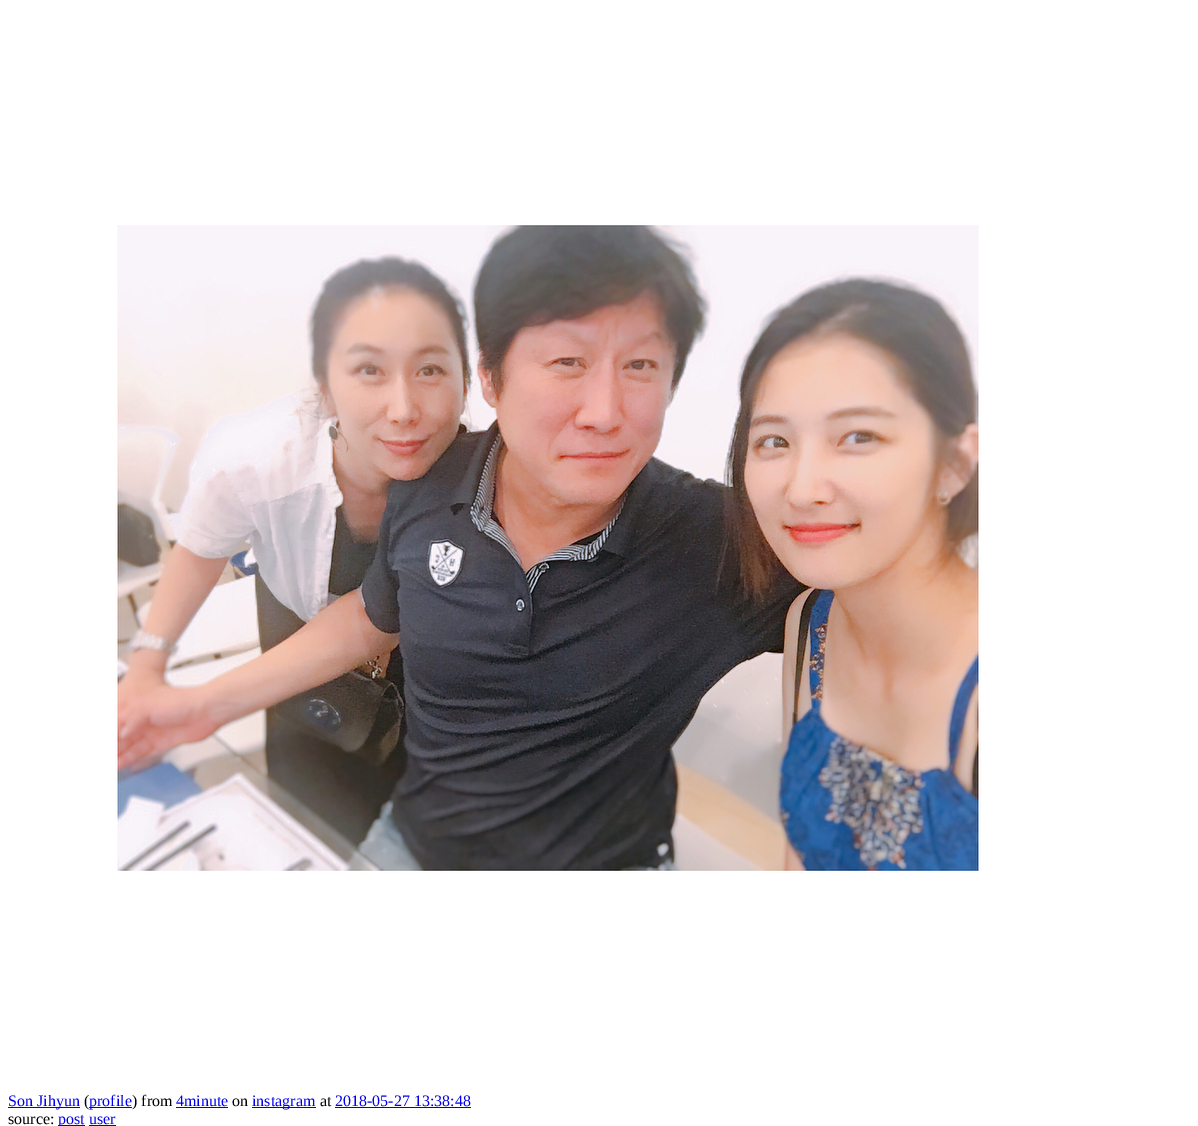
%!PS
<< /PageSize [1198 1126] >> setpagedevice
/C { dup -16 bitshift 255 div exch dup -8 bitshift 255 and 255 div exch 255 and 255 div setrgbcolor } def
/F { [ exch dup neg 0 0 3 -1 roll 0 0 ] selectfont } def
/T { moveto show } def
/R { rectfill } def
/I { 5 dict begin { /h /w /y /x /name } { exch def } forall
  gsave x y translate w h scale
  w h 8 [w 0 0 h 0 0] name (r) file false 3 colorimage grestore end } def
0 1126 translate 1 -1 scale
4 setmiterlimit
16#FFFFFF C
0 0 1198 1126 R
(1.rgb) 115 223 866 650 I
16#0000EE C
8 1107 72 1 R
/LiberationSerif-Regular 16 F
(Son Jihyun) 8 1106 T
16#000000 C
(\() 84 1106 T
16#0000EE C
89 1107 43 1 R
(profile) 89 1106 T
16#000000 C
(\) from) 132 1106 T
16#0000EE C
(4minute) 176 1106 T
176 1107 52 1 R
16#000000 C
(on) 232 1106 T
16#0000EE C
252 1107 64 1 R
(instagram) 252 1106 T
16#000000 C
(at) 320 1106 T
16#0000EE C
(2018-05-27 13:38:48) 335 1106 T
335 1107 136 1 R
16#000000 C
(source:) 8 1124 T
16#0000EE C
58 1125 27 1 R
(post user) 58 1124 T
89 1125 27 1 R
showpage
